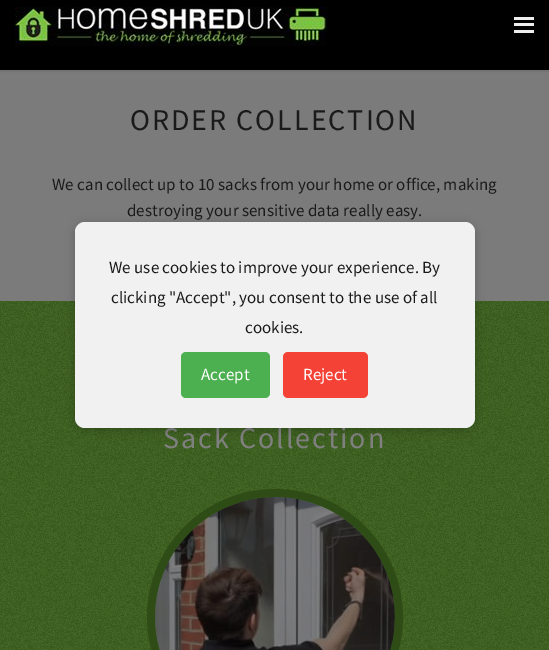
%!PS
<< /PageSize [549 650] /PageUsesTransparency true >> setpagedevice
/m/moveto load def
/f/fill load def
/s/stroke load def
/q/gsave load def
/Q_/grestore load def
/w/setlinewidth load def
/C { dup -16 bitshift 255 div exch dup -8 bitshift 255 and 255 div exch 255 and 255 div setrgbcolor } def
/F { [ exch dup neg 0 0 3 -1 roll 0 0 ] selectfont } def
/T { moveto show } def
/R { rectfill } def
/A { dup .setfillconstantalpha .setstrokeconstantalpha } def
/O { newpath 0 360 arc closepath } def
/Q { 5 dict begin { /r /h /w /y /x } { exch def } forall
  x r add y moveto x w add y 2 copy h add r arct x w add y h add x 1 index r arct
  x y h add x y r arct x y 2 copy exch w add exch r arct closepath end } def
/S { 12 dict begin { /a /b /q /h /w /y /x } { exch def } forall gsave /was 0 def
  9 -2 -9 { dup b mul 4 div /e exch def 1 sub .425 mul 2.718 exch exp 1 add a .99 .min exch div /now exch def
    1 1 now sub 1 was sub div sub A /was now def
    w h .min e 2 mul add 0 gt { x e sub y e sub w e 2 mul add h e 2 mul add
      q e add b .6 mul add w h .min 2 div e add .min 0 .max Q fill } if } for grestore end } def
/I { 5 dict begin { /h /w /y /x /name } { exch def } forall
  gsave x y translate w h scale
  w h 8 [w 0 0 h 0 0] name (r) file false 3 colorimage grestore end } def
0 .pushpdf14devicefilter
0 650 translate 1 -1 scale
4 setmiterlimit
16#7B7B7B C
0 0 549 650 R
16#000000 C
0 2 549 70 0 1 .1 S
0 0 549 70 R
(1.rgb) 15 7 312 39 I
16#EEEEEE C
514 17 20 3 R
514 23 20 3 R
514 30 20 3 R
/SourceSansPro-Regular 30 F
16#1A1A1A C
130 130 m 2 0 (ORDER COLLECTION) ashow
/SourceSansPro-Regular 17 F
(We can collect up to 10 sacks from your home or office, making) 52 190 T
(destroying your sensitive data really easy.) 127 216 T
(2.rgb) 0 301 549 349 I
/SourceSansPro-Regular 30 F
16#808080 C
163 448 m 2 0 (Sack Collection) ashow
16#3E6021 C
275 617 124 O q f Q_
16#2F4C17 C
8 w
s
(3.rgb) 155 497 240 153 I
16#000000 C
75 224 400 206 10 5 .2 S
16#F1F1F1 C
75 222 400 206 10 Q f
/SourceSansPro-Regular 17 F
16#1A1A1A C
(We use cookies to improve your experience. By) 109 273 T
(clicking "Accept", you consent to the use of all) 111 303 T
(cookies.) 245 333 T
16#4CAF50 C
181 352 89 46 5 Q f
16#FFFFFF C
(Accept) 201 380 T
16#F44336 C
283 352 85 46 5 Q f
16#FFFFFF C
(Reject) 303 380 T
.poppdf14devicefilter showpage
